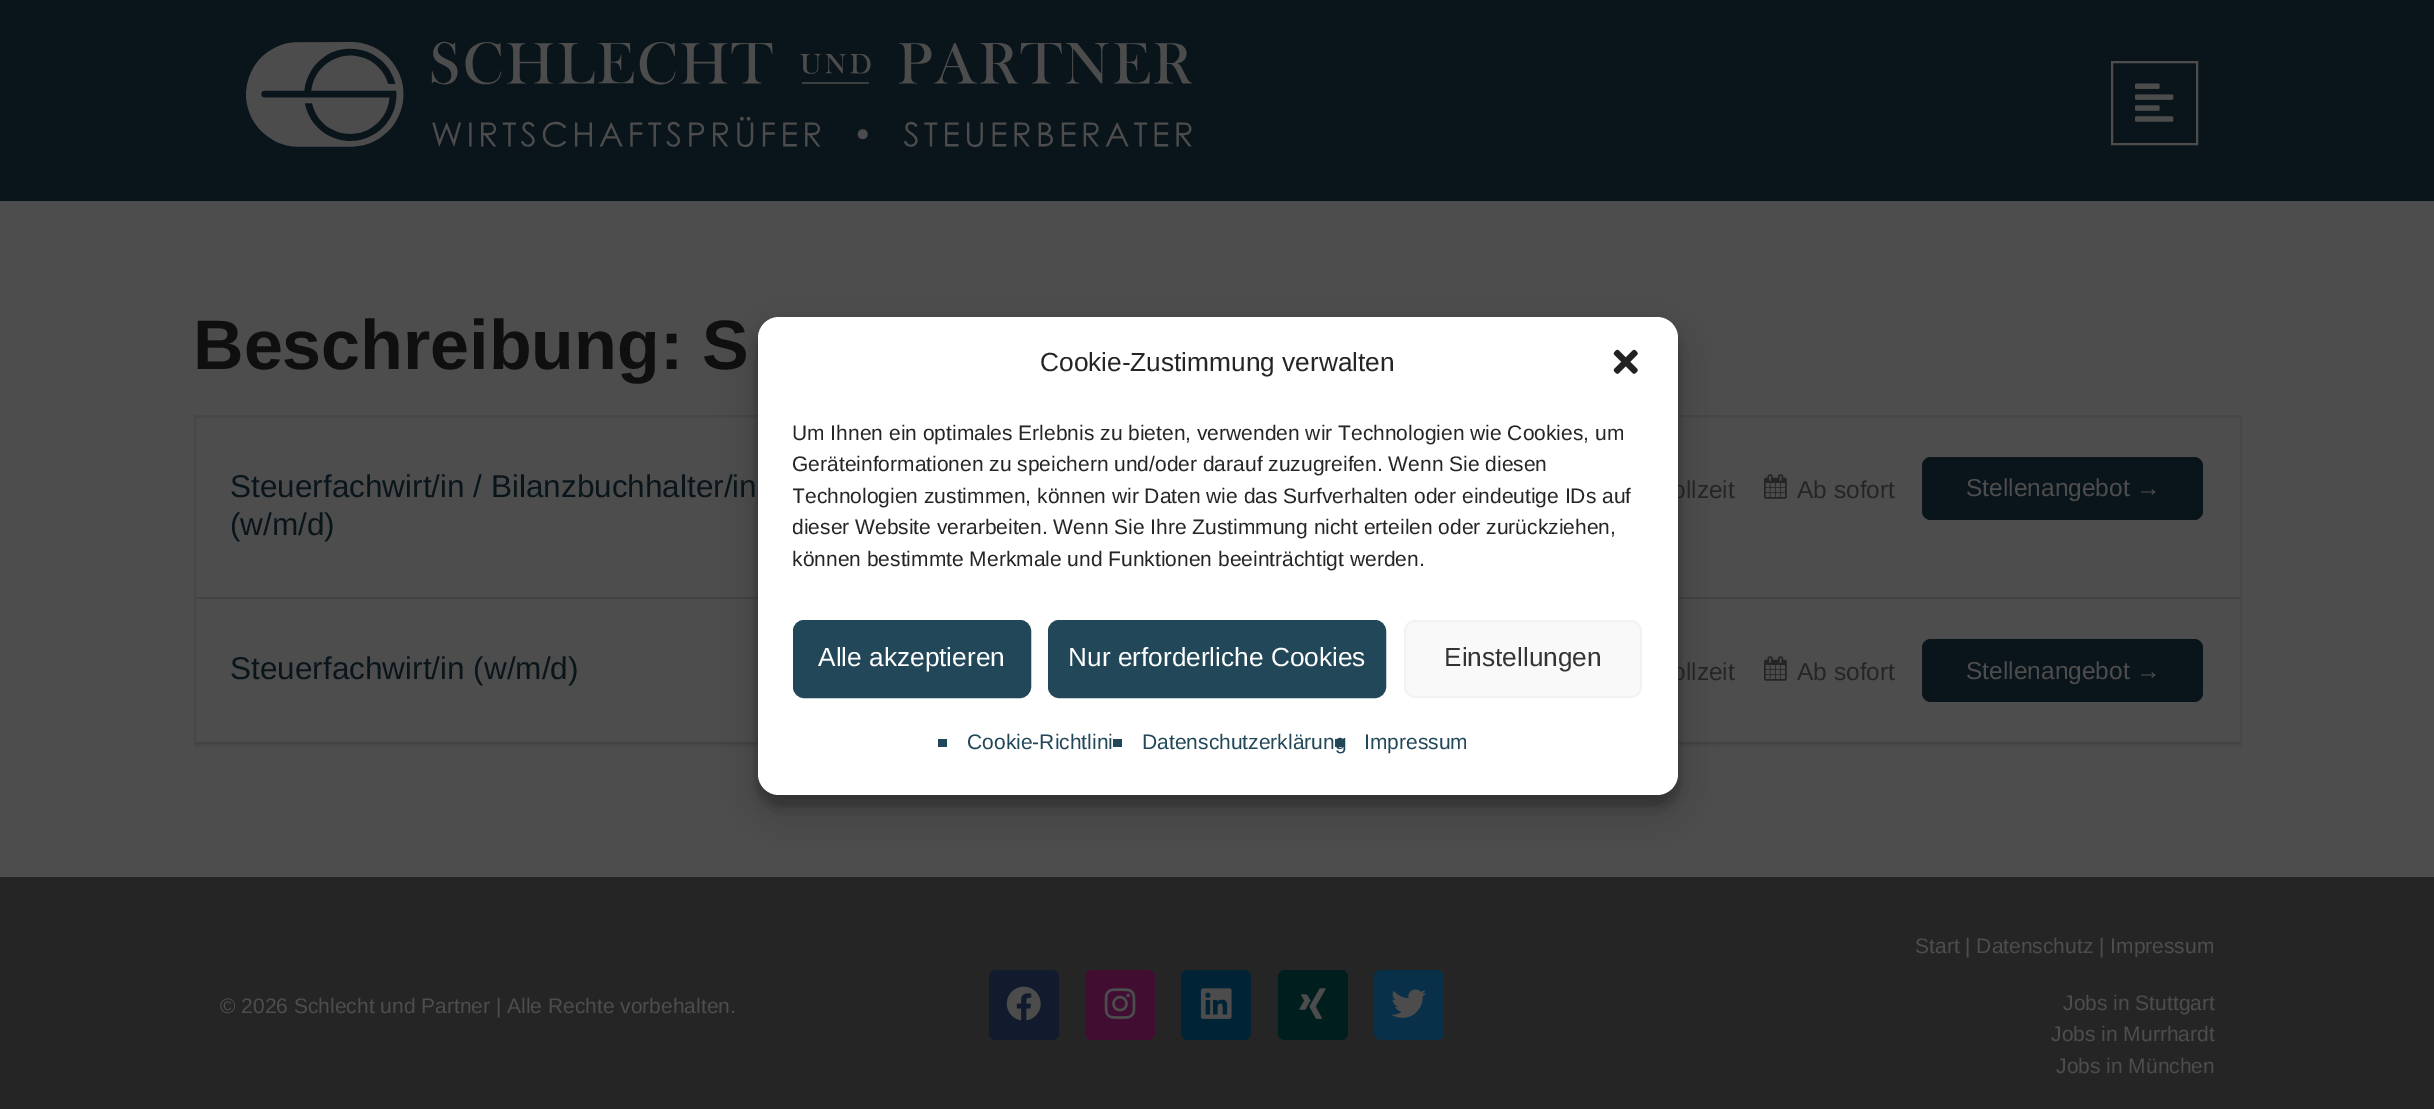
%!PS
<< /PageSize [2434 1109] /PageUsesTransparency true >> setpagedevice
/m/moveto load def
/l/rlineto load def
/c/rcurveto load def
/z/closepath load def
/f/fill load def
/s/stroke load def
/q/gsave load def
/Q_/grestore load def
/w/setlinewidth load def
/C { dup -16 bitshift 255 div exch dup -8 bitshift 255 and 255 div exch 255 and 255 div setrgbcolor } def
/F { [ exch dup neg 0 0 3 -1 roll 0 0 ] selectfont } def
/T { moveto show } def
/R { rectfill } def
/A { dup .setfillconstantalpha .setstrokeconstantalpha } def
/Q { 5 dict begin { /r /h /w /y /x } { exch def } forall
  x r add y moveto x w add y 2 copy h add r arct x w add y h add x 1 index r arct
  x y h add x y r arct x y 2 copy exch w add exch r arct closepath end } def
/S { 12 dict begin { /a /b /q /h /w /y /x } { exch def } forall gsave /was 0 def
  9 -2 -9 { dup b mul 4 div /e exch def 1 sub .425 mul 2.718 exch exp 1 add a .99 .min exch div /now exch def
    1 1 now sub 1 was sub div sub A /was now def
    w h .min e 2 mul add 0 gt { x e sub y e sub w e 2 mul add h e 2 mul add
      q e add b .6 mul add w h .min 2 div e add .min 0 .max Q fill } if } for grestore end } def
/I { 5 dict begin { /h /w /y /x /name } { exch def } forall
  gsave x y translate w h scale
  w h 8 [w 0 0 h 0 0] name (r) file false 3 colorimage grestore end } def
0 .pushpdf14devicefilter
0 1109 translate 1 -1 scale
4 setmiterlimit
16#4D4D4D C
0 0 2434 1109 R
16#0A151B C
0 0 2434 201 R
(1.rgb) 246 41 947 107 I
16#4D4D4D C
2 w
2112 62 85 82 rectstroke
(2.rgb) 2135 83 39 39 I
/LiberationSans-Bold 70 F
16#0F0F0F C
(Beschreibung: S) 193 369 T
16#474747 C
195 416 2046 329 rectstroke
16#434343 C
196 597 2044 2 R
/LiberationSans-Regular 31.5 F
16#0A151B C
(Steuerfachwirt/in / Bilanzbuchhalter/in) 230 497 T
(\(w/m/d\)) 230 535 T
/LiberationSans-Regular 24.5 F
16#252525 C
(ollzeit) 1672 498 T
(3.rgb) 1764 474 23 25 I
(Ab sofort) 1797 498 T
16#0A151B C
1931 457 m 204 0 l 0 63 l -204 0 l -5 0 -9 -4 -9 -9 c 0 -45 l 0 -5 4 -9 9 -9 c z f
2135 457 m 59 0 l 5 0 9 4 9 9 c 0 45 l 0 5 -4 9 -9 9 c -59 0 l z f
16#4D4D4D C
(Stellenangebot →) 1966 496 T
16#434343 C
196 742 2044 2 R
/LiberationSans-Regular 31.5 F
16#0A151B C
(Steuerfachwirt/in \(w/m/d\)) 230 679 T
/LiberationSans-Regular 24.5 F
16#252525 C
(ollzeit) 1672 680 T
(3.rgb) 1764 656 23 25 I
(Ab sofort) 1797 680 T
16#0A151B C
1931 639 m 204 0 l 0 63 l -204 0 l -5 0 -9 -4 -9 -9 c 0 -45 l 0 -5 4 -9 9 -9 c z f
2135 639 m 59 0 l 5 0 9 4 9 9 c 0 45 l 0 5 -4 9 -9 9 c -59 0 l z f
16#4D4D4D C
(Stellenangebot →) 1966 679 T
16#252525 C
0 877 2434 232 R
/LiberationSans-Regular 21 F
16#4D4D4D C
(© 2026 Schlecht und Partner | Alle Rechte vorbehalten.) 220 1013 T
16#121B2E C
989 970 70 70 7 Q f
(4.rgb) 1006 986 35 35 I
16#410E32 C
1085 970 70 70 7 Q f
(5.rgb) 1104 988 32 31 I
16#002436 C
1181 970 70 70 7 Q f
(6.rgb) 1200 988 32 31 I
16#011E1F C
1278 970 70 70 7 Q f
(7.rgb) 1299 988 27 31 I
16#093049 C
1374 970 70 70 7 Q f
(8.rgb) 1391 989 36 29 I
16#4D4D4D C
(Start | Datenschutz | Impressum) 1915 953 T
(Jobs in Stuttgart) 2063 1010 T
(Jobs in Murrhardt) 2051 1041 T
(Jobs in München) 2056 1073 T
16#000000 C
758 327 920 478 21 5 .23 S
758 334 920 478 21 17.5 .19 S
16#FFFFFF C
758 317 920 478 21 Q f
/LiberationSans-Regular 26.25 F
16#252525 C
(Cookie-Zustimmung verwalten) 1040 371 T
(9.rgb) 1613 349 25 25 I
/LiberationSans-Regular 21 F
(Um Ihnen ein optimales Erlebnis zu bieten, verwenden wir Technologien wie Cookies, um) 792 440 T
(Geräteinformationen zu speichern und/oder darauf zuzugreifen. Wenn Sie diesen) 792 471 T
q
793 418 850 167 rectclip
(Technologien zustimmen, können wir Daten wie das Surfverhalten oder eindeutige IDs auf) 792 503 T
(dieser Website verarbeiten. Wenn Sie Ihre Zustimmung nicht erteilen oder zurückziehen,) 792 534 T
Q_
(können bestimmte Merkmale und Funktionen beeinträchtigt werden.) 792 566 T
16#214759 C
794 621 236 76 10 Q q f Q_
s
/LiberationSans-Regular 26.25 F
16#FFFFFF C
(Alle akzeptieren) 818 666 T
16#214759 C
1049 621 336 76 10 Q q f Q_
s
16#FFFFFF C
(Nur erforderliche Cookies) 1068 666 T
16#F9F9F9 C
1405 621 236 76 10 Q q f Q_
16#F2F2F2 C
s
16#333333 C
(Einstellungen) 1444 666 T
16#214759 C
938 739 9 8 R
/LiberationSans-Regular 21 F
(Cookie-Richtlini) 967 749 T
1113 739 9 8 R
(Datenschutzerklärung) 1142 749 T
1335 739 9 8 R
(Impressum) 1364 749 T
.poppdf14devicefilter showpage
